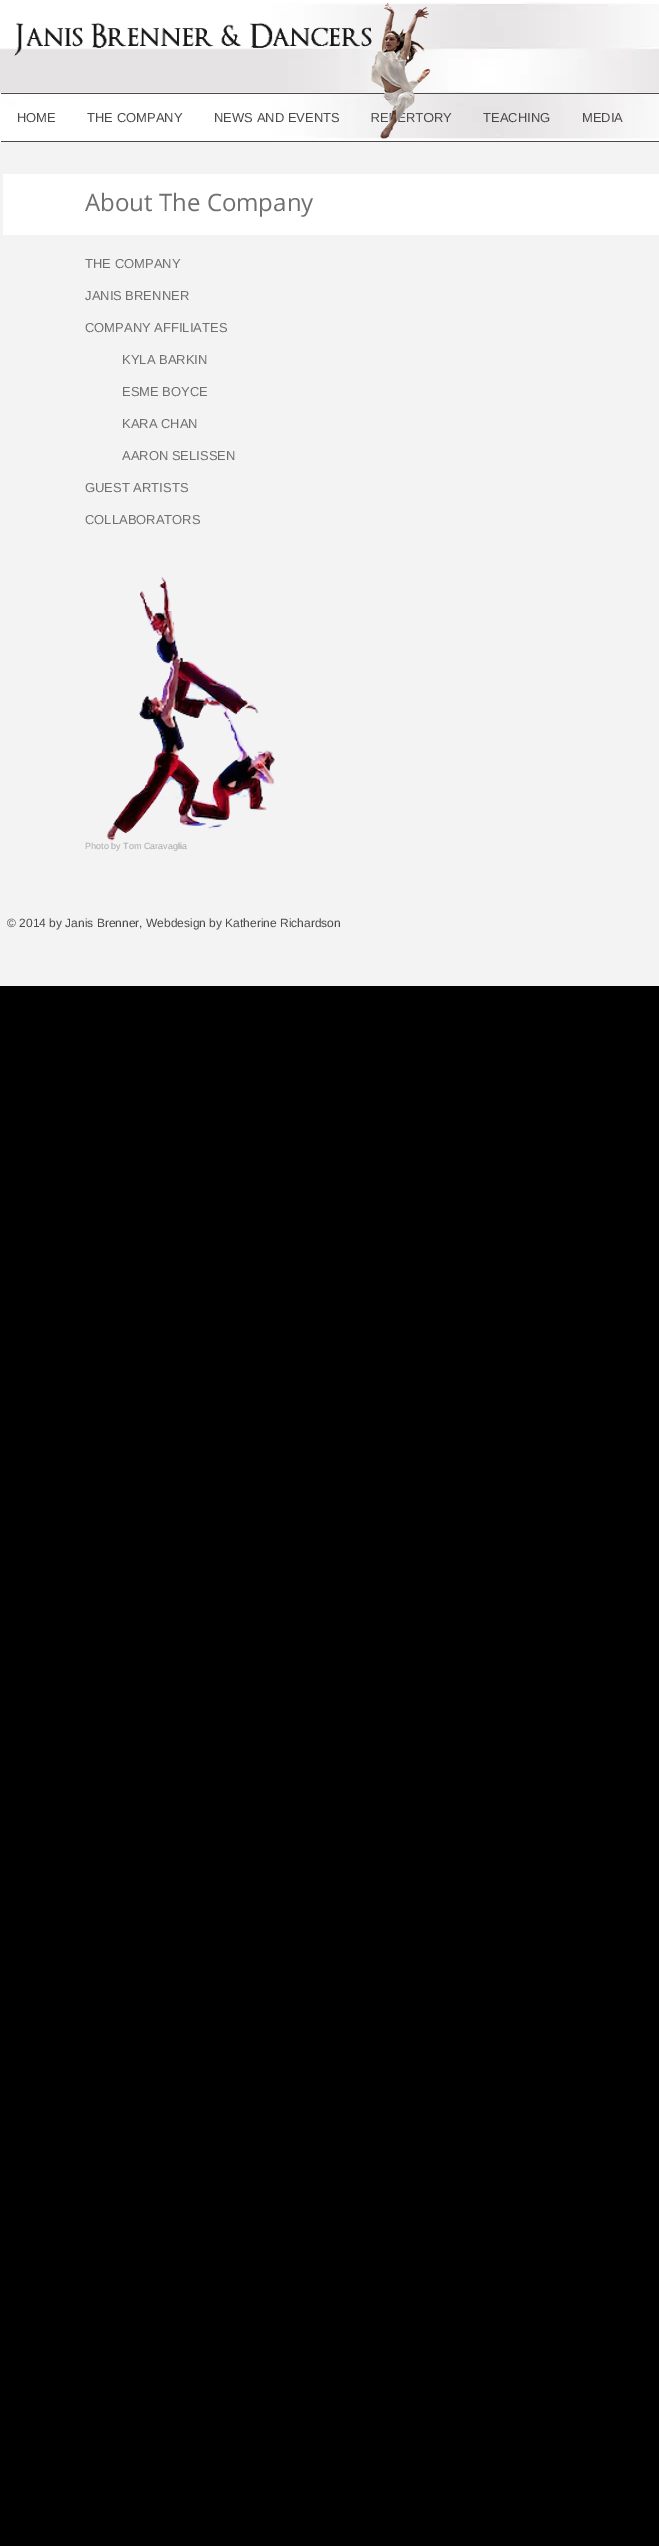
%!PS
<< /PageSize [659 2546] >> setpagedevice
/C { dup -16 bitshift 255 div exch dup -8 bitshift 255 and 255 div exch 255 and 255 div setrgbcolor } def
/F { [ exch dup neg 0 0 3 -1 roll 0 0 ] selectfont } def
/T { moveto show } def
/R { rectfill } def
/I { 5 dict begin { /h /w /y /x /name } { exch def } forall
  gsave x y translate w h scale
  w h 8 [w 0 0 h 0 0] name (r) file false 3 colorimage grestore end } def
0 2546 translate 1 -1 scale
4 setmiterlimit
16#000000 C
0 0 659 2546 R
16#FFFFFF C
0 0 659 2 R
(1.rgb) 0 2 659 140 I
(2.rgb) 14 22 358 34 I
16#4A4A4A C
1 93 658 1 R
/LiberationSans-Regular 13 F
(REPERTORY) 371 122 T
(3.rgb) 371 3 60 136 I
1 141 658 1 R
(HOME) 17 122 T
(THE COMPANY) 87 122 T
(NEWS AND EVENTS) 214 122 T
(TEACHING) 483 122 T
(MEDIA) 582 122 T
16#F3F3F3 C
0 142 659 844 R
16#FFFFFF C
3 174 656 61 R
/OpenSans-Regular 24 F
16#717070 C
(About The Company) 85 211 T
/LiberationSans-Regular 13 F
(THE COMPANY) 85 268 T
(JANIS BRENNER) 85 300 T
(COMPANY AFFILIATES) 85 332 T
(KYLA BARKIN) 122 364 T
(ESME BOYCE) 122 396 T
(KARA CHAN) 122 428 T
(AARON SELISSEN) 122 460 T
(GUEST ARTISTS) 85 492 T
(COLLABORATORS) 85 524 T
(4.rgb) 107 576 168 265 I
/LiberationSans-Regular 9 F
16#AAA8A8 C
(Photo by Tom Caravaglia) 85 849 T
/LiberationSans-Regular 12 F
16#4A4A4A C
(© 2014 by Janis Brenner, Webdesign by Katherine Richardson) 7 927 T
showpage
